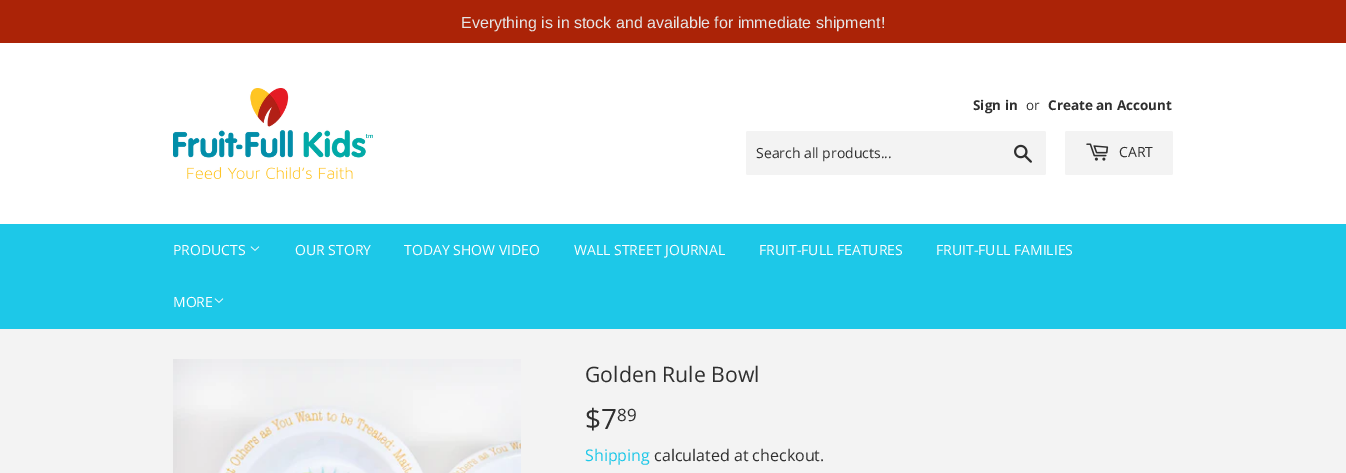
%!PS
<< /PageSize [1346 473] >> setpagedevice
/f/fill load def
/C { dup -16 bitshift 255 div exch dup -8 bitshift 255 and 255 div exch 255 and 255 div setrgbcolor } def
/F { [ exch dup neg 0 0 3 -1 roll 0 0 ] selectfont } def
/T { moveto show } def
/R { rectfill } def
/Q { 5 dict begin { /r /h /w /y /x } { exch def } forall
  x r add y moveto x w add y 2 copy h add r arct x w add y h add x 1 index r arct
  x y h add x y r arct x y 2 copy exch w add exch r arct closepath end } def
/I { 5 dict begin { /h /w /y /x /name } { exch def } forall
  gsave x y translate w h scale
  w h 8 [w 0 0 h 0 0] name (r) file false 3 colorimage grestore end } def
0 473 translate 1 -1 scale
4 setmiterlimit
16#F3F3F3 C
0 0 1346 473 R
16#AB2307 C
0 0 1346 43 R
/LiberationSans-Regular 16 F
16#E6E6E6 C
(Everything is in stock and available for immediate shipment!) 461 28 T
16#FFFFFF C
0 43 1346 181 R
(1.rgb) 173 88 200 91 I
/OpenSans-Bold 13.5 F
16#2F2F2F C
(Sign in) 973 110 T
/OpenSans-Regular 13.5 F
(or) 1026 110 T
/OpenSans-Bold 13.5 F
(Create an Account) 1048 110 T
16#F3F3F3 C
746 131 300 44 2 Q f
/OpenSans-Regular 14 F
16#2F2F2F C
(Search all products...) 756 158 T
(2.rgb) 1014 144 18 19 I
16#F3F3F3 C
1065 131 108 44 2 Q f
(3.rgb) 1086 143 23 18 I
16#2F2F2F C
(CART) 1119 157 T
16#1DC8E8 C
0 224 1346 105 R
16#FFFFFF C
(PRODUCTS) 173 255 T
(4.rgb) 250 246 10 5 I
(OUR STORY) 295 255 T
(TODAY SHOW VIDEO) 404 255 T
(WALL STREET JOURNAL) 574 255 T
(FRUIT-FULL FEATURES) 759 255 T
(FRUIT-FULL FAMILIES) 936 255 T
(MORE) 173 307 T
(4.rgb) 214 298 10 5 I
(5.rgb) 173 359 348 114 I
/OpenSans-Regular 21.25 F
16#2F2F2F C
(Golden Rule Bowl) 585 382 T
/OpenSans-Regular 28 F
($7) 585 429 T
/OpenSans-Regular 17 F
(89) 617 421 T
/OpenSans-Regular 16 F
16#1DC8E8 C
(Shipping) 585 461 T
16#2F2F2F C
(calculated at checkout.) 654 461 T
showpage
